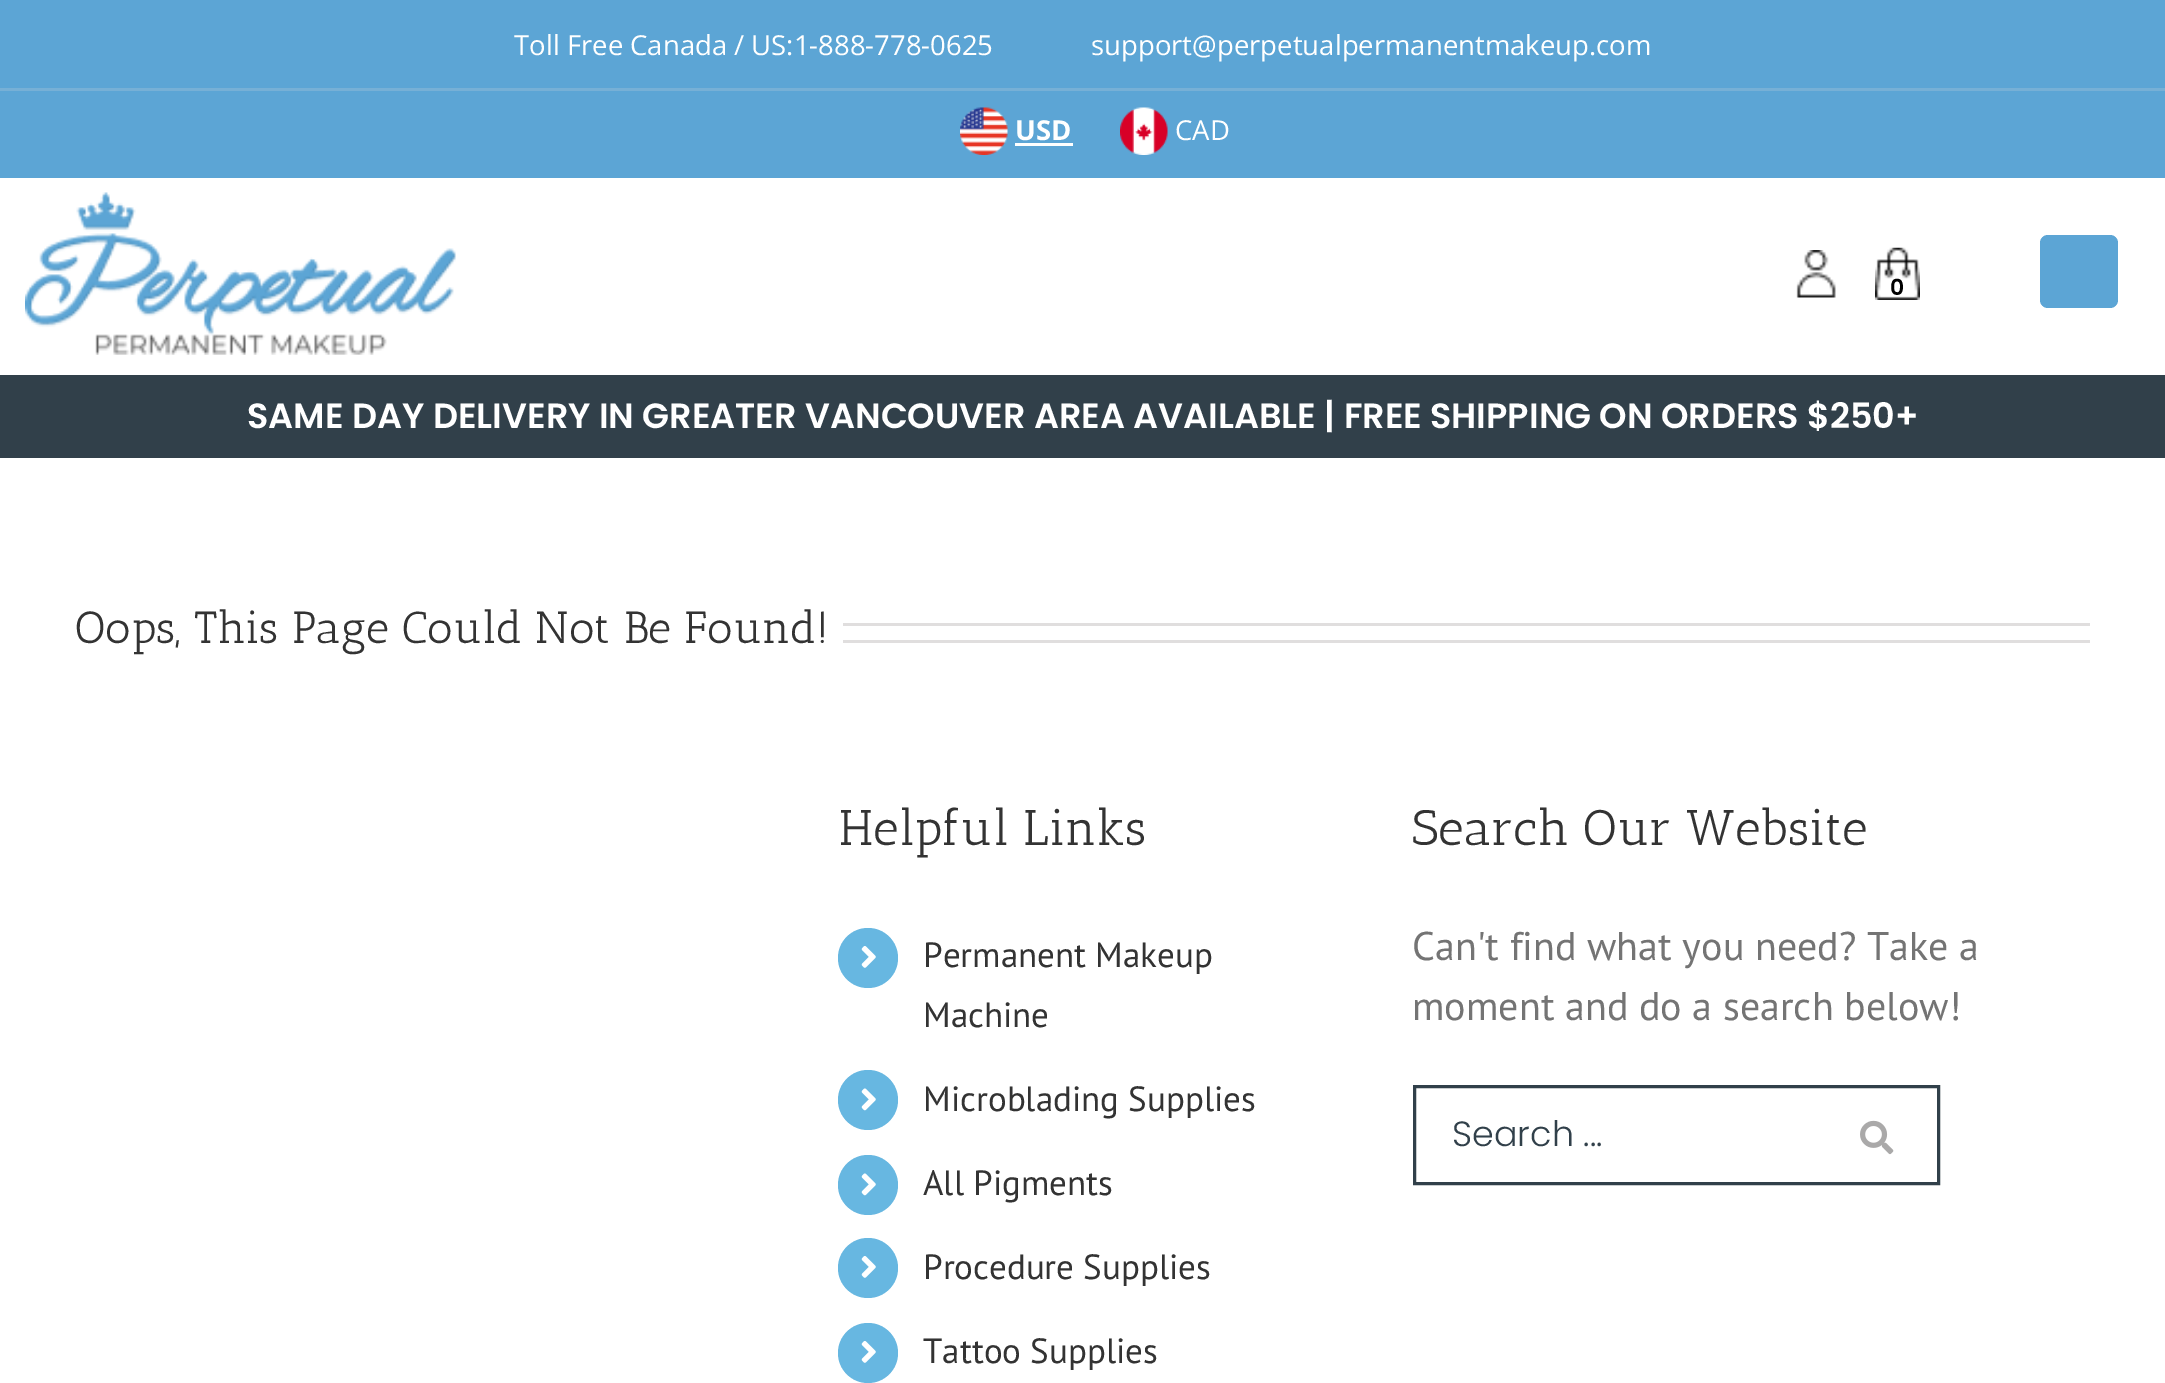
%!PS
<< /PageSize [2165 1383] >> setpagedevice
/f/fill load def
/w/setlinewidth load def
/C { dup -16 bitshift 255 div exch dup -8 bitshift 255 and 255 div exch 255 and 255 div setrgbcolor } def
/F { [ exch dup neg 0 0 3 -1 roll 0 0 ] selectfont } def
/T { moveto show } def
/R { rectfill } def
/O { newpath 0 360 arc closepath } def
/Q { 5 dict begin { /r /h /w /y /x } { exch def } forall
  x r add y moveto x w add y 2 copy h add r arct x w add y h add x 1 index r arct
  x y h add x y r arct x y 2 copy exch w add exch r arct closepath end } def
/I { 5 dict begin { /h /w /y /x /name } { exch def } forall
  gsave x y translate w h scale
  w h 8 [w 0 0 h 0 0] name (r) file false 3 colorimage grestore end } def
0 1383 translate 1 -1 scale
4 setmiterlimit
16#FFFFFF C
0 0 2165 1383 R
16#5CA5D5 C
0 0 2165 178 R
16#77B0D6 C
0 88 2165 3 R
/OpenSans-Regular 27.5 F
16#FFFFFF C
(Toll Free Canada / US:1-888-778-0625) 514 55 T
(support@perpetualpermanentmakeup.com) 1091 55 T
(1.rgb) 960 107 48 48 I
/OpenSans-Bold 27.5 F
(USD) 1015 140 T
1015 143 58 3 R
(2.rgb) 1120 107 48 48 I
/OpenSans-Regular 27.5 F
(CAD) 1175 140 T
(3.rgb) 25 192 431 163 I
(4.rgb) 1796 250 40 48 I
(5.rgb) 1875 247 45 53 I
/Poppins-SemiBold 22 F
16#000000 C
(0) 1890 295 T
16#5CA5D5 C
2040 235 78 73 8 Q f
16#31404A C
0 375 2165 83 R
/Poppins-SemiBold 35 F
16#FFFFFF C
(SAME DAY DELIVERY IN GREATER VANCOUVER AREA AVAILABLE | FREE SHIPPING ON ORDERS $250+) 247 428 T
/AnticSlab-Regular 45 F
16#333333 C
(Oops, This Page Could Not Be Found!) 75 643 T
16#E0DEDE C
843 623 1247 3 R
843 640 1247 3 R
/AnticSlab-Regular 50 F
16#333333 C
(Helpful Links) 839 845 T
16#67B7E1 C
868 958 30 O f
(6.rgb) 861 946 15 22 I
/PTSans-Regular 35 F
16#333333 C
(Permanent Makeup) 923 967 T
(Machine) 923 1027 T
16#67B7E1 C
868 1100 30 O f
(7.rgb) 861 1088 15 23 I
16#333333 C
(Microblading Supplies) 923 1111 T
16#67B7E1 C
868 1185 30 O f
(7.rgb) 861 1173 15 23 I
16#333333 C
(All Pigments) 923 1195 T
16#67B7E1 C
868 1268 30 O f
(6.rgb) 861 1256 15 22 I
16#333333 C
(Procedure Supplies) 923 1279 T
16#67B7E1 C
868 1353 30 O f
(6.rgb) 861 1341 15 22 I
16#333333 C
(Tattoo Supplies) 923 1363 T
/AnticSlab-Regular 50 F
(Search Our Website) 1412 845 T
/PTSans-Regular 40 F
16#747474 C
(Can't find what you need? Take a) 1412 960 T
(moment and do a search below!) 1412 1020 T
16#31404A C
3 w
1414.5 1086.5 524 97 rectstroke
/Poppins-Light 35 F
(Search ...) 1452 1146 T
(8.rgb) 1860 1120 34 35 I
showpage
